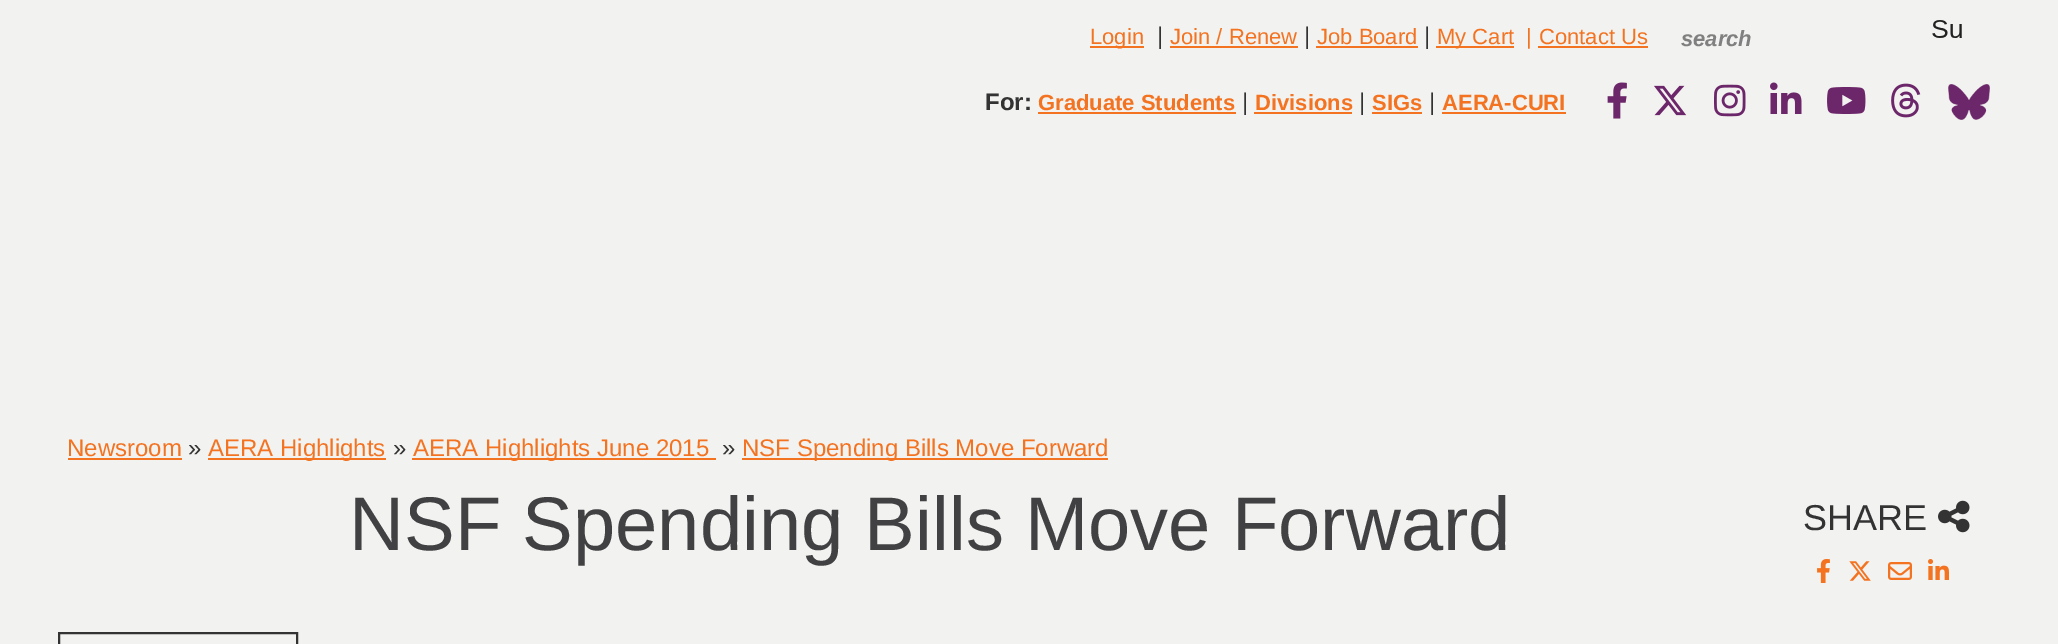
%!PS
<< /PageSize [2058 644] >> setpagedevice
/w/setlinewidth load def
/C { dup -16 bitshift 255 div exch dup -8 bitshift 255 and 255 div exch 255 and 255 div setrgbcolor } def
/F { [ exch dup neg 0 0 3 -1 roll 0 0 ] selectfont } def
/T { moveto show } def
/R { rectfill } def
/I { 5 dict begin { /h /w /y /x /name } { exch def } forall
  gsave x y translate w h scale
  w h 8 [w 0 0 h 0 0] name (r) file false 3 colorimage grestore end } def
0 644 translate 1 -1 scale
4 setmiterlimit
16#F2F2F0 C
0 0 2058 644 R
16#F37321 C
1090 46 54 2 R
/LiberationSans-Regular 22 F
(Login) 1090 44 T
/LiberationSans-Regular 24 F
16#333333 C
(|) 1157 44 T
/LiberationSans-Regular 22 F
16#F37321 C
(Join / Renew) 1170 44 T
1170 46 128 2 R
/LiberationSans-Regular 24 F
16#333333 C
(|) 1304 44 T
/LiberationSans-Regular 22 F
16#F37321 C
(Job Board) 1317 44 T
1316 46 102 2 R
/LiberationSans-Regular 24 F
16#333333 C
(|) 1424 44 T
16#F37321 C
1436 46 78 2 R
/LiberationSans-Regular 22 F
(My Cart) 1437 44 T
(|) 1526 44 T
(Contact Us) 1539 44 T
1538 46 110 2 R
/LiberationSans-BoldItalic 22 F
16#808080 C
(search) 1681 46 T
(1.rgb) 1932 20 30 18 I
/LiberationSans-Bold 24 F
16#333333 C
(For:) 985 110 T
/LiberationSans-Bold 22 F
16#F37321 C
(Graduate Students) 1038 110 T
1038 112 198 2 R
/LiberationSans-Regular 24 F
16#333333 C
(|) 1242 110 T
/LiberationSans-Bold 22 F
16#F37321 C
(Divisions) 1255 110 T
1254 112 98 2 R
/LiberationSans-Regular 24 F
16#333333 C
(|) 1359 110 T
/LiberationSans-Bold 22 F
16#F37321 C
(SIGs) 1372 110 T
1372 112 50 2 R
/LiberationSans-Regular 24 F
16#333333 C
(|) 1429 110 T
/LiberationSans-Bold 22 F
16#F37321 C
(AERA-CURI) 1442 110 T
1442 112 124 2 R
(2.rgb) 1607 82 20 37 I
(3.rgb) 1654 85 33 31 I
(4.rgb) 1714 84 32 33 I
(5.rgb) 1770 82 32 32 I
(6.rgb) 1827 87 39 27 I
(7.rgb) 1891 83 30 35 I
(8.rgb) 1948 84 42 36 I
/LiberationSans-Regular 24 F
(Newsroom) 67 456 T
68 458 114 2 R
16#333333 C
(») 188 456 T
16#F37321 C
208 458 178 2 R
(AERA Highlights) 208 456 T
16#333333 C
(») 393 456 T
16#F37321 C
412 458 304 2 R
(AERA Highlights June 2015) 413 456 T
16#333333 C
(») 722 456 T
16#F37321 C
742 458 366 2 R
(NSF Spending Bills Move Forward) 742 456 T
/LiberationSans-Regular 76 F
16#414042 C
(NSF Spending Bills Move Forward) 349 550 T
/LiberationSans-Regular 36 F
16#333333 C
(SHARE) 1803 530 T
(9.rgb) 1938 500 32 33 I
(10.rgb) 1817 559 13 24 I
(11.rgb) 1849 561 22 20 I
(12.rgb) 1888 562 24 18 I
(13.rgb) 1928 559 21 21 I
2 w
59 633 238 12 rectstroke
showpage
